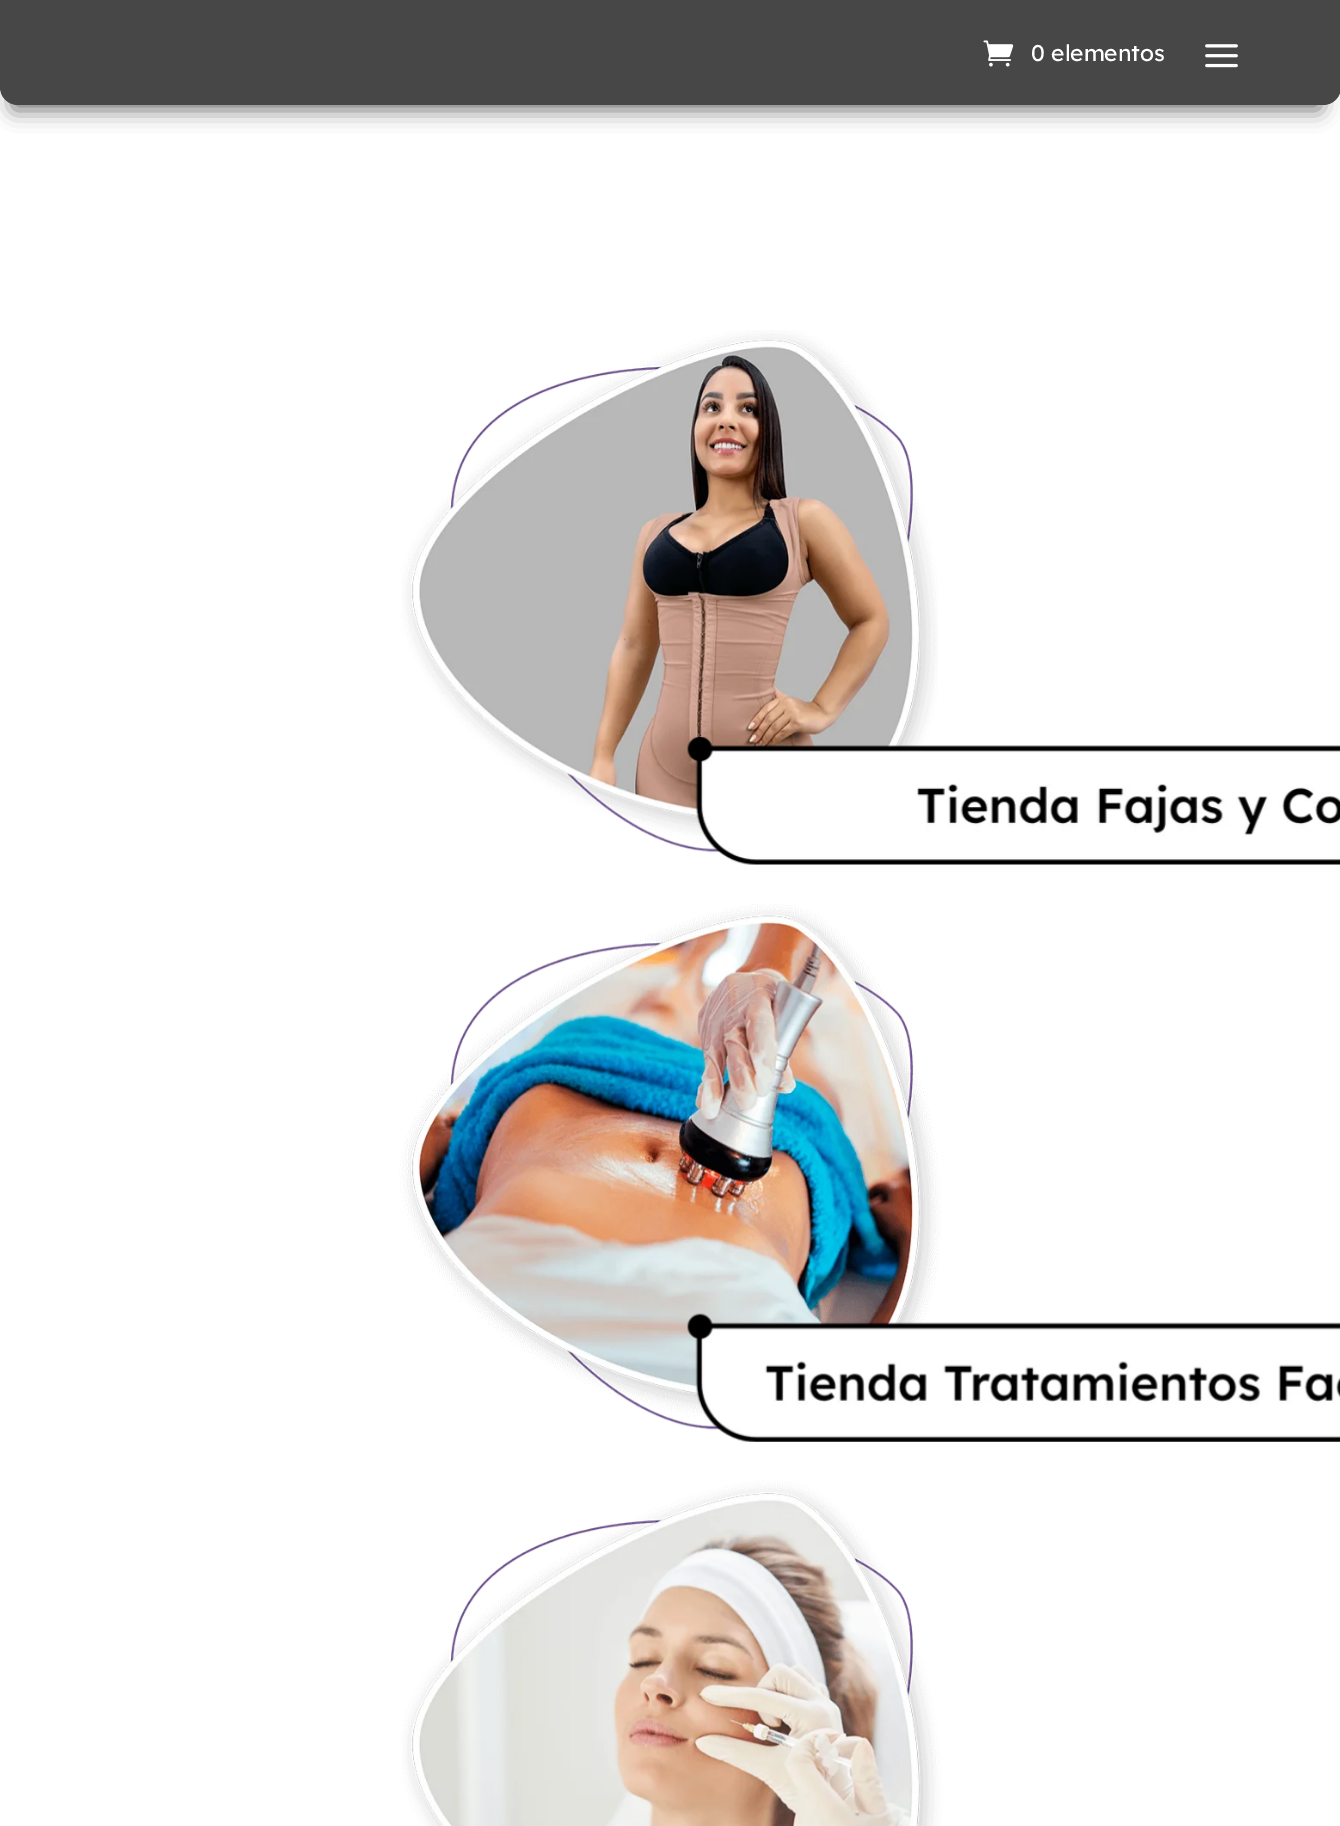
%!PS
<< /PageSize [1340 1826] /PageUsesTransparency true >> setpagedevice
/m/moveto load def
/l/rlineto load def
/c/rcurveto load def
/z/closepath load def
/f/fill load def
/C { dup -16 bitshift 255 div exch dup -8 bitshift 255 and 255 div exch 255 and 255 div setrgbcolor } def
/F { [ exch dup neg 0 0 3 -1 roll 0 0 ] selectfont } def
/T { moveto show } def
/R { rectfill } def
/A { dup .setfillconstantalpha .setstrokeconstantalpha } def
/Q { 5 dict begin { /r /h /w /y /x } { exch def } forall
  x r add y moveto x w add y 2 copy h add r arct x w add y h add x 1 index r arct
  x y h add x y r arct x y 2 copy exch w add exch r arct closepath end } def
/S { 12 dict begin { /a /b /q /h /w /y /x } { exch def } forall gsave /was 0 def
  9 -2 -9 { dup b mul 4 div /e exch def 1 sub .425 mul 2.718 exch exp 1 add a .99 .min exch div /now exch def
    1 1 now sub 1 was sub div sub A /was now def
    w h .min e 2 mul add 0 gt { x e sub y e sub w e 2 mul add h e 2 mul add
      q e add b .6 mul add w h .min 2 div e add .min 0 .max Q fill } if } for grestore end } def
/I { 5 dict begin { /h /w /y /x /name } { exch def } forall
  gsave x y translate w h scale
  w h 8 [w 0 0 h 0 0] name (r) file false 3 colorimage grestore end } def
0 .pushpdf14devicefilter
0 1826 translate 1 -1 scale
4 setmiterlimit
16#FFFFFF C
0 0 1340 1826 R
16#000000 C
12 37 1309 73 2 10.5 .54 S
16#474747 C
0 0 m 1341 0 l 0 87 l 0 10 -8 18 -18 18 c -1305 0 l -10 0 -18 -8 -18 -18 c z f
(1.rgb) 983 40 31 27 I
/Lexend-Regular 22.75 F
16#FFFFFF C
(0 elementos) 1031 61 T
(2.rgb) 1205 44 33 24 I
(3.rgb) 401 330 537 523 I
(4.rgb) 687 737 653 128 I
(5.rgb) 399 903 542 527 I
(6.rgb) 687 1313 653 129 I
(7.rgb) 401 1480 542 346 I
.poppdf14devicefilter showpage
